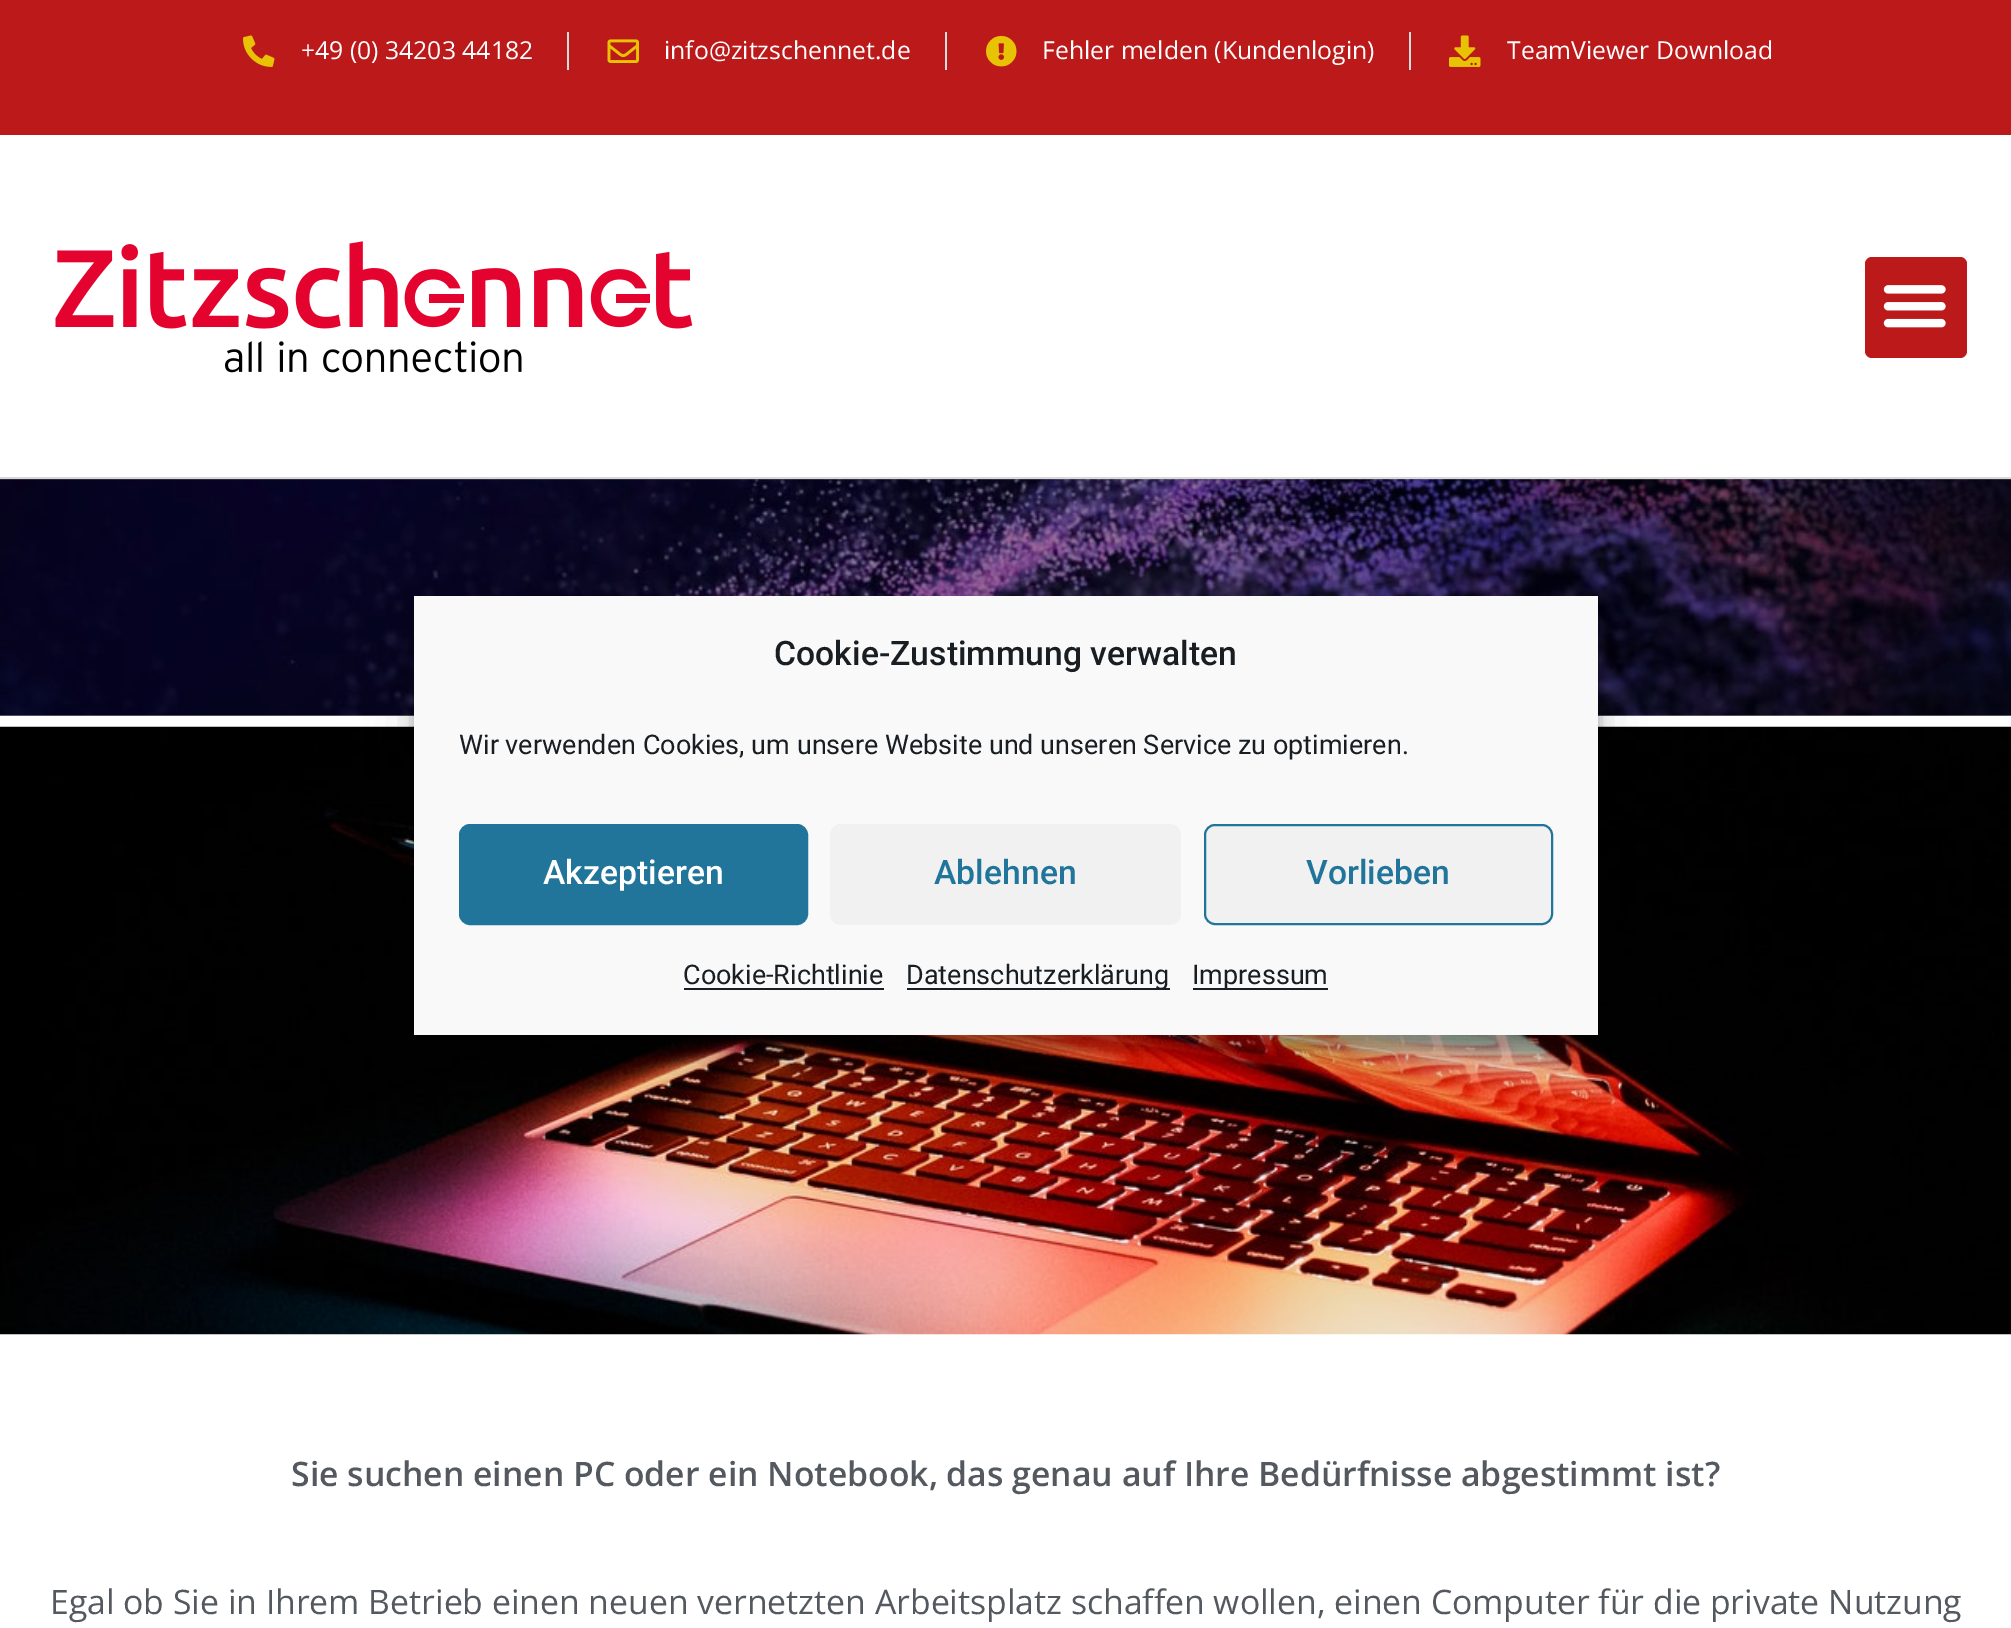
%!PS
<< /PageSize [2011 1628] /PageUsesTransparency true >> setpagedevice
/f/fill load def
/s/stroke load def
/q/gsave load def
/Q_/grestore load def
/w/setlinewidth load def
/C { dup -16 bitshift 255 div exch dup -8 bitshift 255 and 255 div exch 255 and 255 div setrgbcolor } def
/F { [ exch dup neg 0 0 3 -1 roll 0 0 ] selectfont } def
/T { moveto show } def
/R { rectfill } def
/A { dup .setfillconstantalpha .setstrokeconstantalpha } def
/Q { 5 dict begin { /r /h /w /y /x } { exch def } forall
  x r add y moveto x w add y 2 copy h add r arct x w add y h add x 1 index r arct
  x y h add x y r arct x y 2 copy exch w add exch r arct closepath end } def
/S { 12 dict begin { /a /b /q /h /w /y /x } { exch def } forall gsave /was 0 def
  9 -2 -9 { dup b mul 4 div /e exch def 1 sub .425 mul 2.718 exch exp 1 add a .99 .min exch div /now exch def
    1 1 now sub 1 was sub div sub A /was now def
    w h .min e 2 mul add 0 gt { x e sub y e sub w e 2 mul add h e 2 mul add
      q e add b .6 mul add w h .min 2 div e add .min 0 .max Q fill } if } for grestore end } def
/I { 5 dict begin { /h /w /y /x /name } { exch def } forall
  gsave x y translate w h scale
  w h 8 [w 0 0 h 0 0] name (r) file false 3 colorimage grestore end } def
0 .pushpdf14devicefilter
0 1628 translate 1 -1 scale
4 setmiterlimit
16#FFFFFF C
0 0 2011 1628 R
16#999999 C
0 479 2011 237 R
16#BC1A1A C
0 0 2011 135 R
(1.rgb) 243 35 32 32 I
/OpenSans-Regular 24.75 F
16#FFFFFF C
(+49 \(0\) 34203 44182) 301 59 T
16#DDDDDD C
567 32 2 38 R
(2.rgb) 607 39 32 24 I
16#FFFFFF C
(info@zitzschennet.de) 664 59 T
16#DDDDDD C
945 32 2 38 R
(3.rgb) 986 35 31 32 I
16#FFFFFF C
(Fehler melden \(Kundenlogin\)) 1042 59 T
16#DDDDDD C
1409 32 2 38 R
(4.rgb) 1449 35 32 32 I
16#FFFFFF C
(TeamViewer Download) 1507 59 T
16#D8D8D8 C
0 477 2011 2 R
(5.rgb) 55 241 638 132 I
16#BC1A1A C
1865 257 102 101 7 Q f
(6.rgb) 1883 285 63 43 I
(7.rgb) 0 479 2011 237 I
(8.rgb) 0 726 2011 609 I
16#000000 C
414 610 1184 439 0 7 .23 S
414 619 1184 439 0 22.5 .19 S
16#F9F9F9 C
414 596 1184 439 R
/Roboto-Medium 33.75 F
16#191E23 C
(Cookie-Zustimmung verwalten) 774 665 T
/Roboto-Regular 27 F
(Wir verwenden Cookies, um unsere Website und unseren Service zu optimieren.) 459 754 T
16#21759B C
460 825 347 99 10 Q q f Q_
2 w
s
/Roboto-Medium 33.75 F
16#FFFFFF C
(Akzeptieren) 543 884 T
16#F1F1F1 C
830 824 351 101 11 Q f
16#21759B C
(Ablehnen) 934 884 T
16#F1F1F1 C
1205 825 347 99 10 Q q f Q_
16#21759B C
s
(Vorlieben) 1306 884 T
/Roboto-Regular 27 F
16#191E23 C
(Cookie-Richtlinie) 683 984 T
684 988 200 2 R
907 988 263 2 R
(Datenschutzerklärung) 906 984 T
1193 988 135 2 R
(Impressum) 1192 984 T
/OpenSans-SemiBold 33.75 F
16#54595F C
(Sie suchen einen PC oder ein Notebook, das genau auf Ihre Bedürfnisse abgestimmt ist?) 291 1486 T
/OpenSans-Regular 33.75 F
(Egal ob Sie in Ihrem Betrieb einen neuen vernetzten Arbeitsplatz schaffen wollen, einen Computer für die private Nutzung) 50 1614 T
.poppdf14devicefilter showpage
